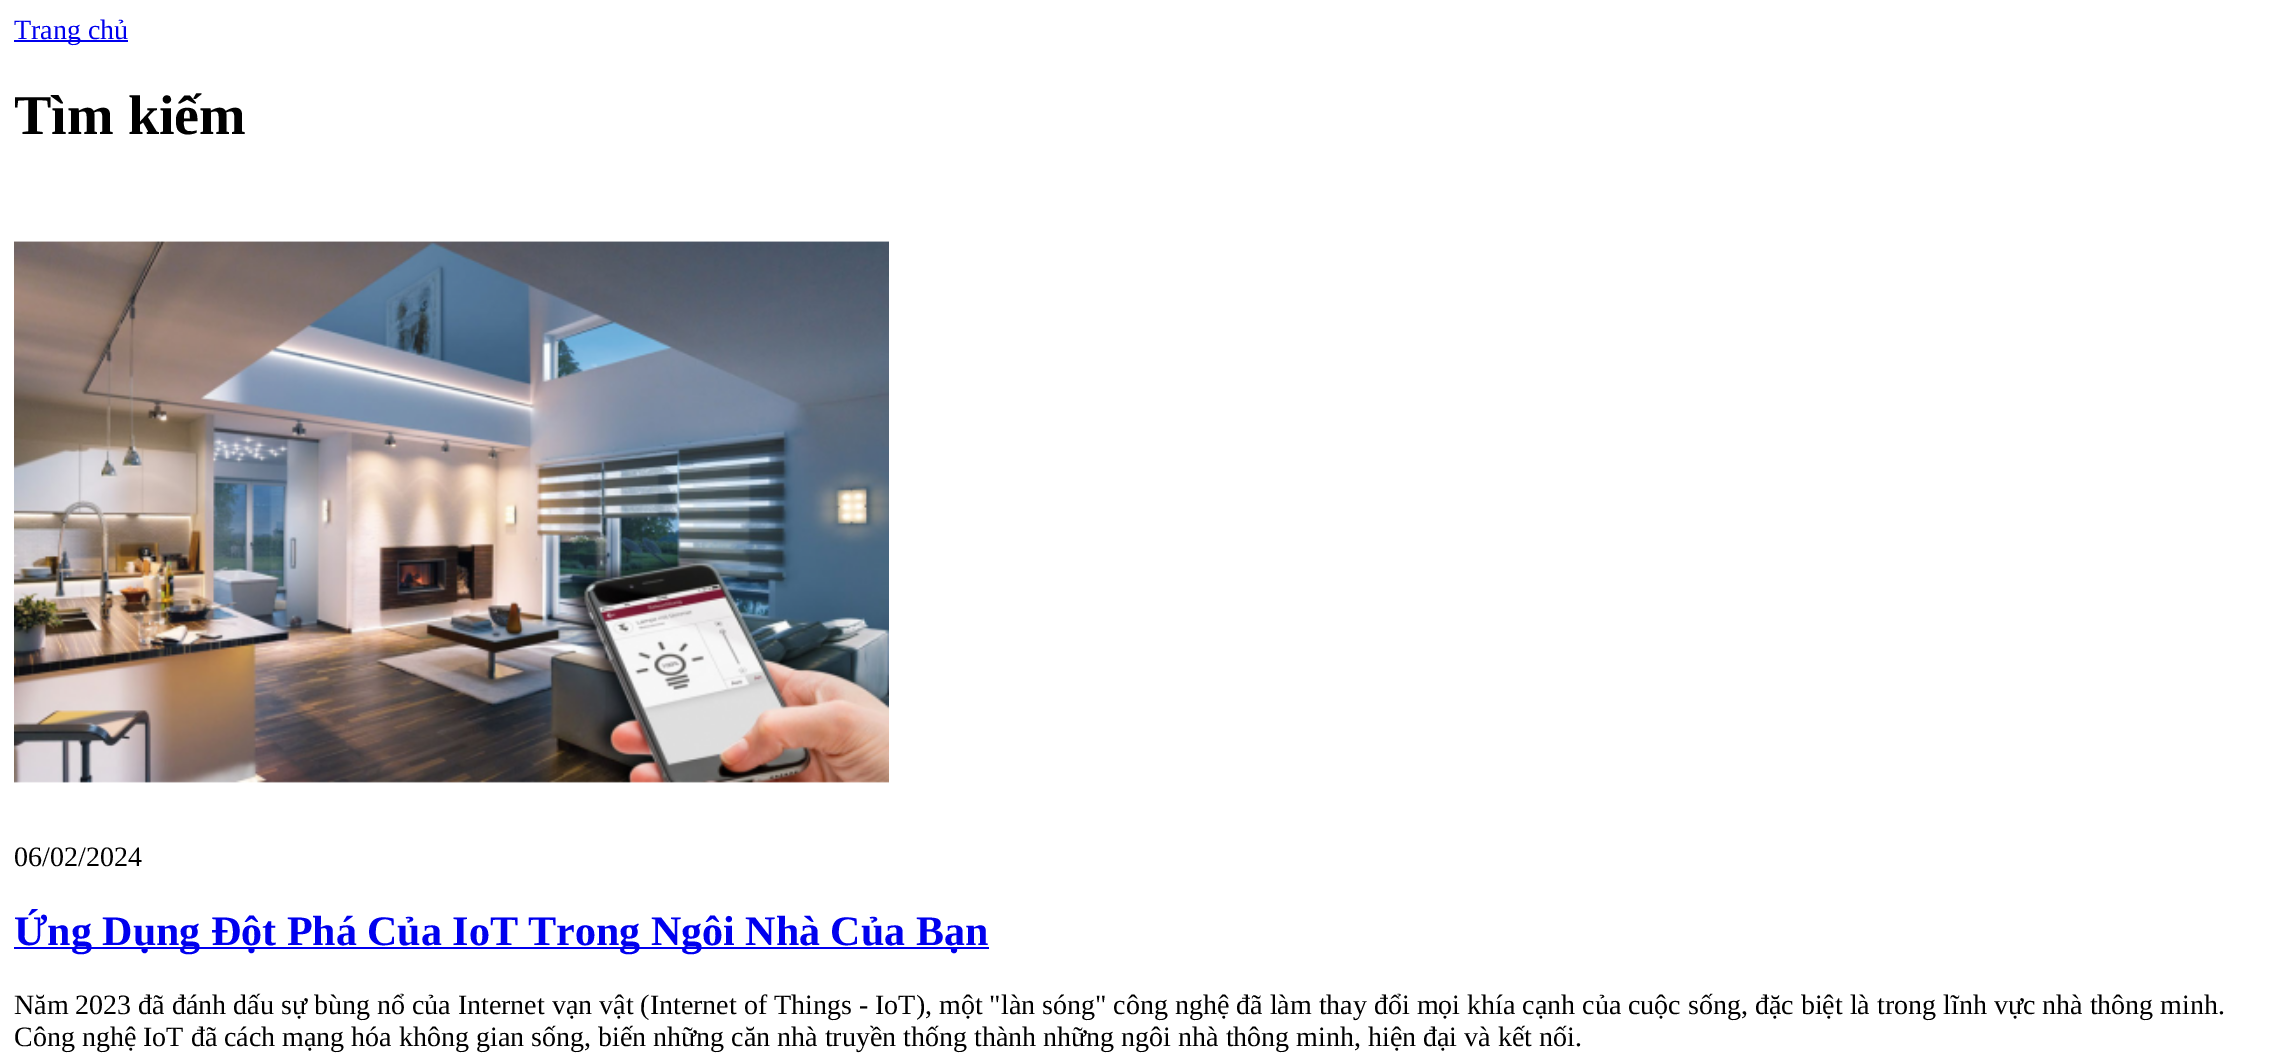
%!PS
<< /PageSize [2287 1054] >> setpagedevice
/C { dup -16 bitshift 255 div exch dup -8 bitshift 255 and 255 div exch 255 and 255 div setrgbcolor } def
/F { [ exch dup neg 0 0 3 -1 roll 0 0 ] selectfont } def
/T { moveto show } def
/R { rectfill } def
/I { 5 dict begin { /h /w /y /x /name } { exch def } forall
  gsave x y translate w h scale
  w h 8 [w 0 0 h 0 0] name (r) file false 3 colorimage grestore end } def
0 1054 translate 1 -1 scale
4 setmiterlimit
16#FFFFFF C
0 0 2287 1054 R
16#0000EE C
14 40 114 2 R
/LiberationSerif-Regular 28 F
(Trang chủ) 14 39 T
/LiberationSerif-Bold 56 F
16#000000 C
(Tìm kiếm) 14 134 T
(1.rgb) 14 241 875 542 I
/LiberationSerif-Regular 28 F
(06/02/2024) 14 866 T
16#0000EE C
14 947 975 2 R
/LiberationSerif-Bold 42 F
(Ứng Dụng Đột Phá Của IoT Trong Ngôi Nhà Của Bạn) 14 945 T
/LiberationSerif-Regular 28 F
16#000000 C
(Năm 2023 đã đánh dấu sự bùng nổ của Internet vạn vật \(Internet of Things - IoT\), một "làn sóng" công nghệ đã làm thay đổi mọi khía cạnh của cuộc sống, đặc biệt là trong lĩnh vực nhà thông minh.) 14 1014 T
(Công nghệ IoT đã cách mạng hóa không gian sống, biến những căn nhà truyền thống thành những ngôi nhà thông minh, hiện đại và kết nối.) 14 1046 T
showpage
